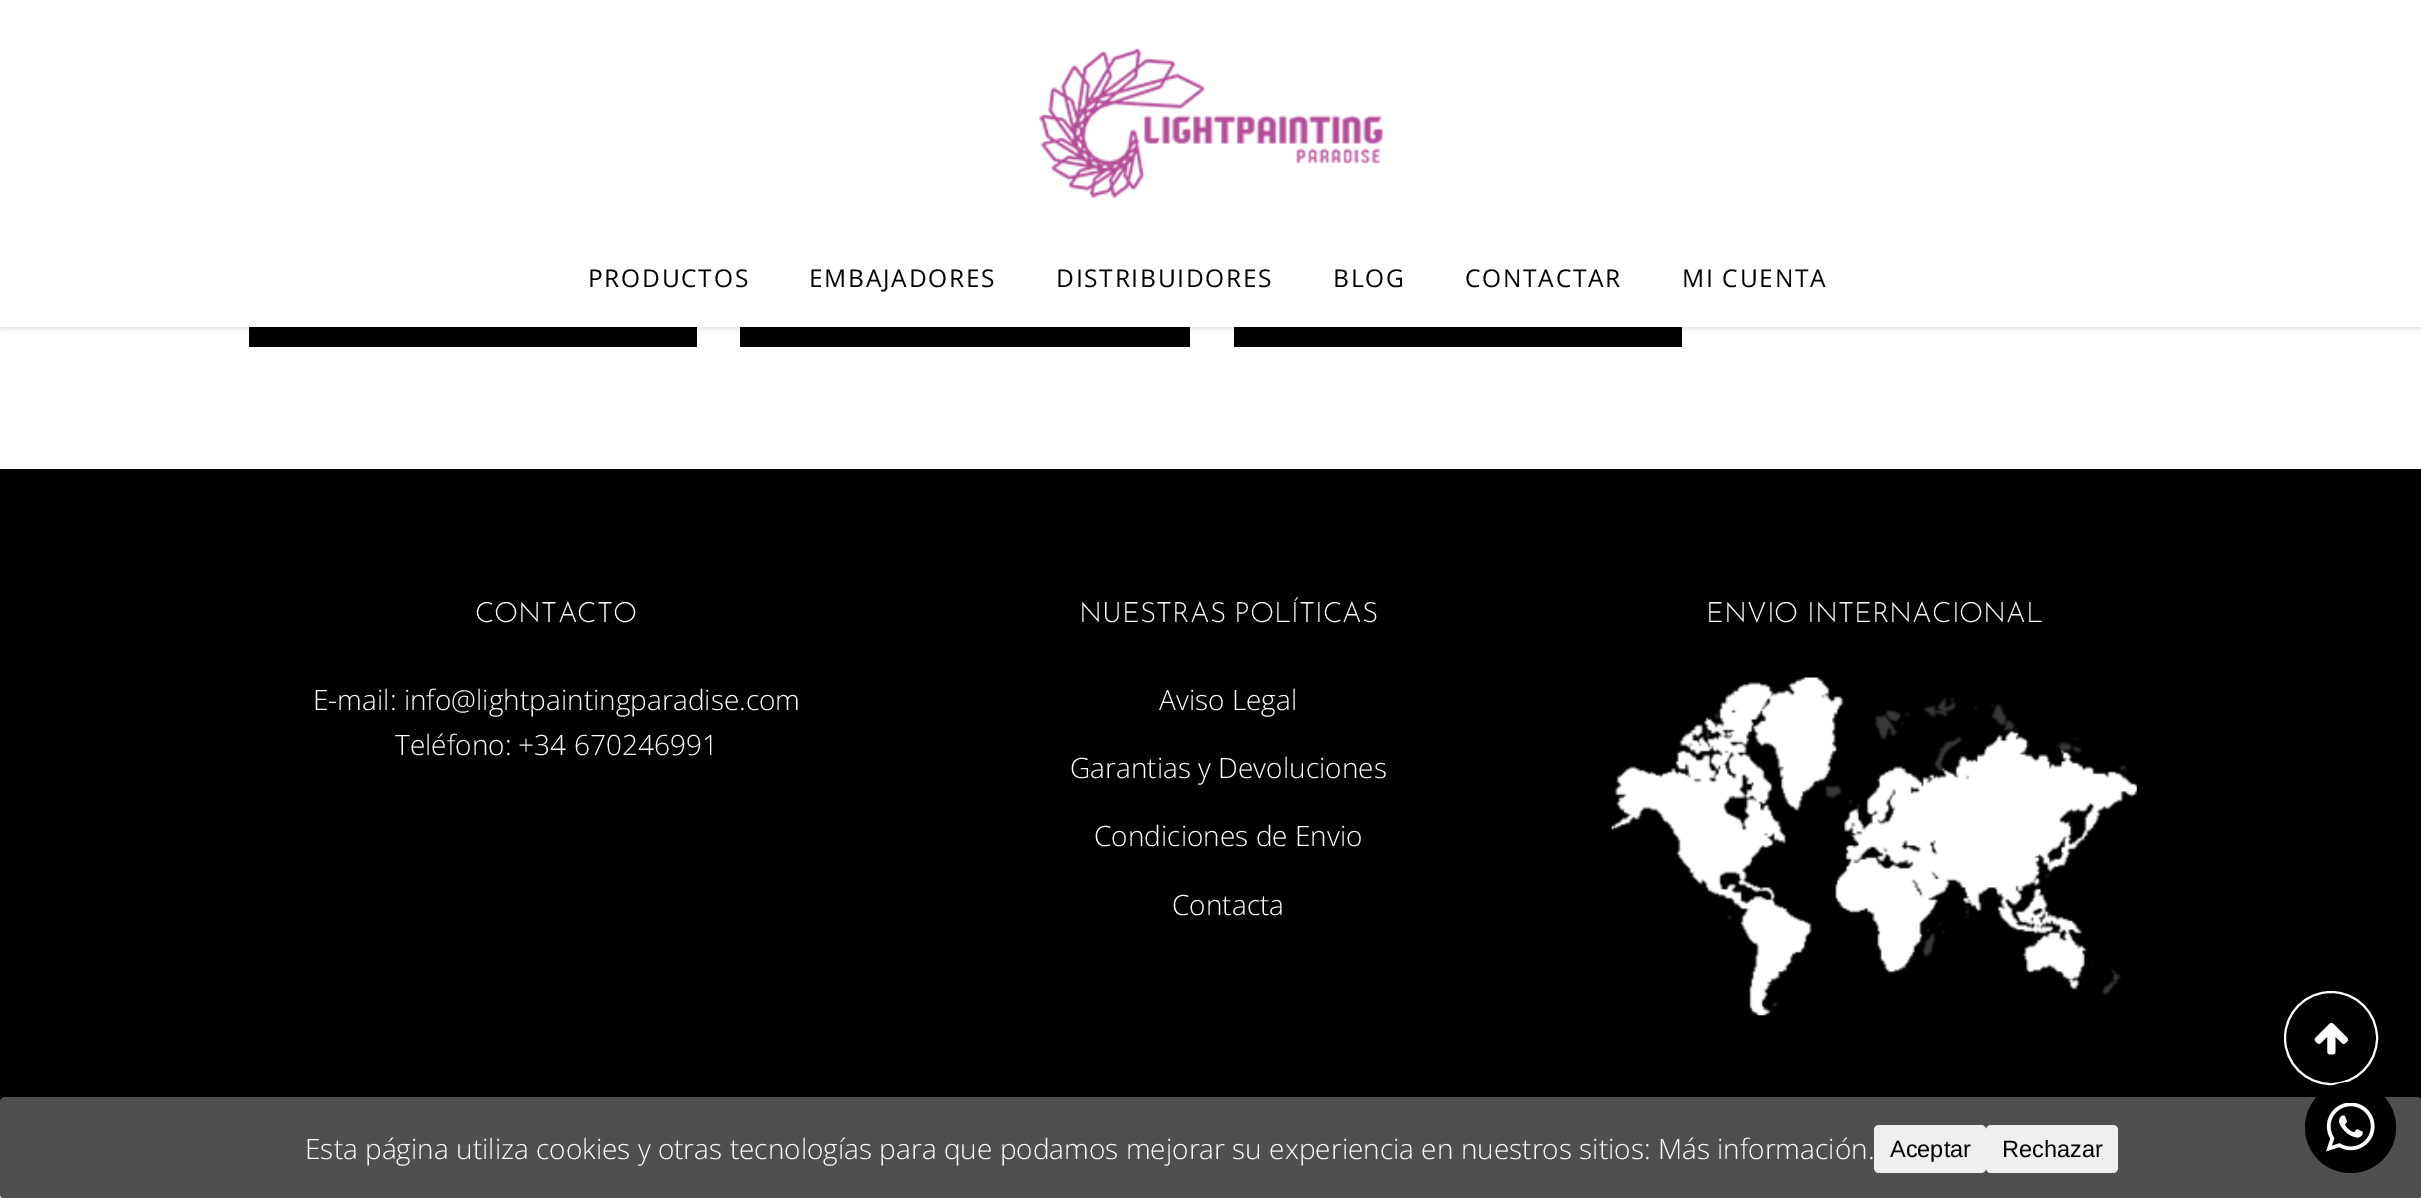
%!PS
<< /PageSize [2421 1198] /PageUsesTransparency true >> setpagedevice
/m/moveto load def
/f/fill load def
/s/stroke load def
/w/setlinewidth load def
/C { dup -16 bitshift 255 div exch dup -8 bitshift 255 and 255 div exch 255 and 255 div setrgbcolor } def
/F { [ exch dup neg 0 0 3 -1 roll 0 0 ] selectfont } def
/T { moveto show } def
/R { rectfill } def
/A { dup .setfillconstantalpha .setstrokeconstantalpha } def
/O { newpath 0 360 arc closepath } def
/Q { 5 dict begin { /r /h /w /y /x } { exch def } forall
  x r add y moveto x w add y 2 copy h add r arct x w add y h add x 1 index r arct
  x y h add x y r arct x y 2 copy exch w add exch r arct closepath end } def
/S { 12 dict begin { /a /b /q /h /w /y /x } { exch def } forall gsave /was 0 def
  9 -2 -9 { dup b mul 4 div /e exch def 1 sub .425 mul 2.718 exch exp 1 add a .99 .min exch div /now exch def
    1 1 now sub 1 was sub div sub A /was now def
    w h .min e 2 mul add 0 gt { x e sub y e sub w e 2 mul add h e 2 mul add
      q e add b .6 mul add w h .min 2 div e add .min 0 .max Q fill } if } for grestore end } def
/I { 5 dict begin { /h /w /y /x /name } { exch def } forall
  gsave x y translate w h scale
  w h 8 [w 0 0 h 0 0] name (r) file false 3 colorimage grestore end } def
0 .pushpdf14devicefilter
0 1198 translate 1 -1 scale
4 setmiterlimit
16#FFFFFF C
0 0 2421 1198 R
16#000000 C
249 327 448 20 R
740 327 450 20 R
1234 327 448 20 R
0 2 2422 327 0 2.5 .11 S
16#FFFFFF C
0 0 2421 327 R
(1.rgb) 1039 48 344 151 I
/OpenSans-Regular 24.5 F
16#000000 C
588 287 m 1.75 0 (PRODUCTOS) ashow
809 287 m 1.75 0 (EMBAJADORES) ashow
1056 287 m 1.75 0 (DISTRIBUIDORES) ashow
1333 287 m 1.75 0 (BLOG) ashow
1465 287 m 1.75 0 (CONTACTAR) ashow
1682 287 m 1.75 0 (MI CUENTA) ashow
0 469 2421 633 R
/JosefinSans-Thin 28 F
16#FFFFFF C
(CONTACTO) 475 622 T
/OpenSans-Light 28 F
(E-mail: info@lightpaintingparadise.com) 313 710 T
(Teléfono: +34 670246991) 395 755 T
/JosefinSans-Thin 28 F
(NUESTRAS POLÍTICAS) 1079 622 T
/OpenSans-Light 28 F
(Aviso Legal) 1159 710 T
(Garantias y Devoluciones) 1070 778 T
(Condiciones de Envio) 1094 846 T
(Contacta) 1172 915 T
/JosefinSans-Thin 28 F
(ENVIO INTERNACIONAL) 1706 622 T
(2.rgb) 1611 677 526 339 I
2 w
2331 1038 46 O s
(3.rgb) 2314 1022 35 33 I
16#4F4F4F C
0 1097 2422 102 5 Q f
/OpenSans-Light 28 F
16#FFFFFF C
(Esta página utiliza cookies y otras tecnologías para que podamos mejorar su experiencia en nuestros sitios: Más información.) 305 1159 T
16#EFEFEF C
1874 1125 112 48 5 Q f
/LiberationSans-Regular 23.5 F
16#000000 C
(Aceptar) 1890 1157 T
16#EFEFEF C
1986 1125 132 48 5 Q f
16#000000 C
(Rechazar) 2002 1157 T
2350.5 1127.5 45.5 O f
(4.rgb) 2326 1103 49 49 I
.poppdf14devicefilter showpage
